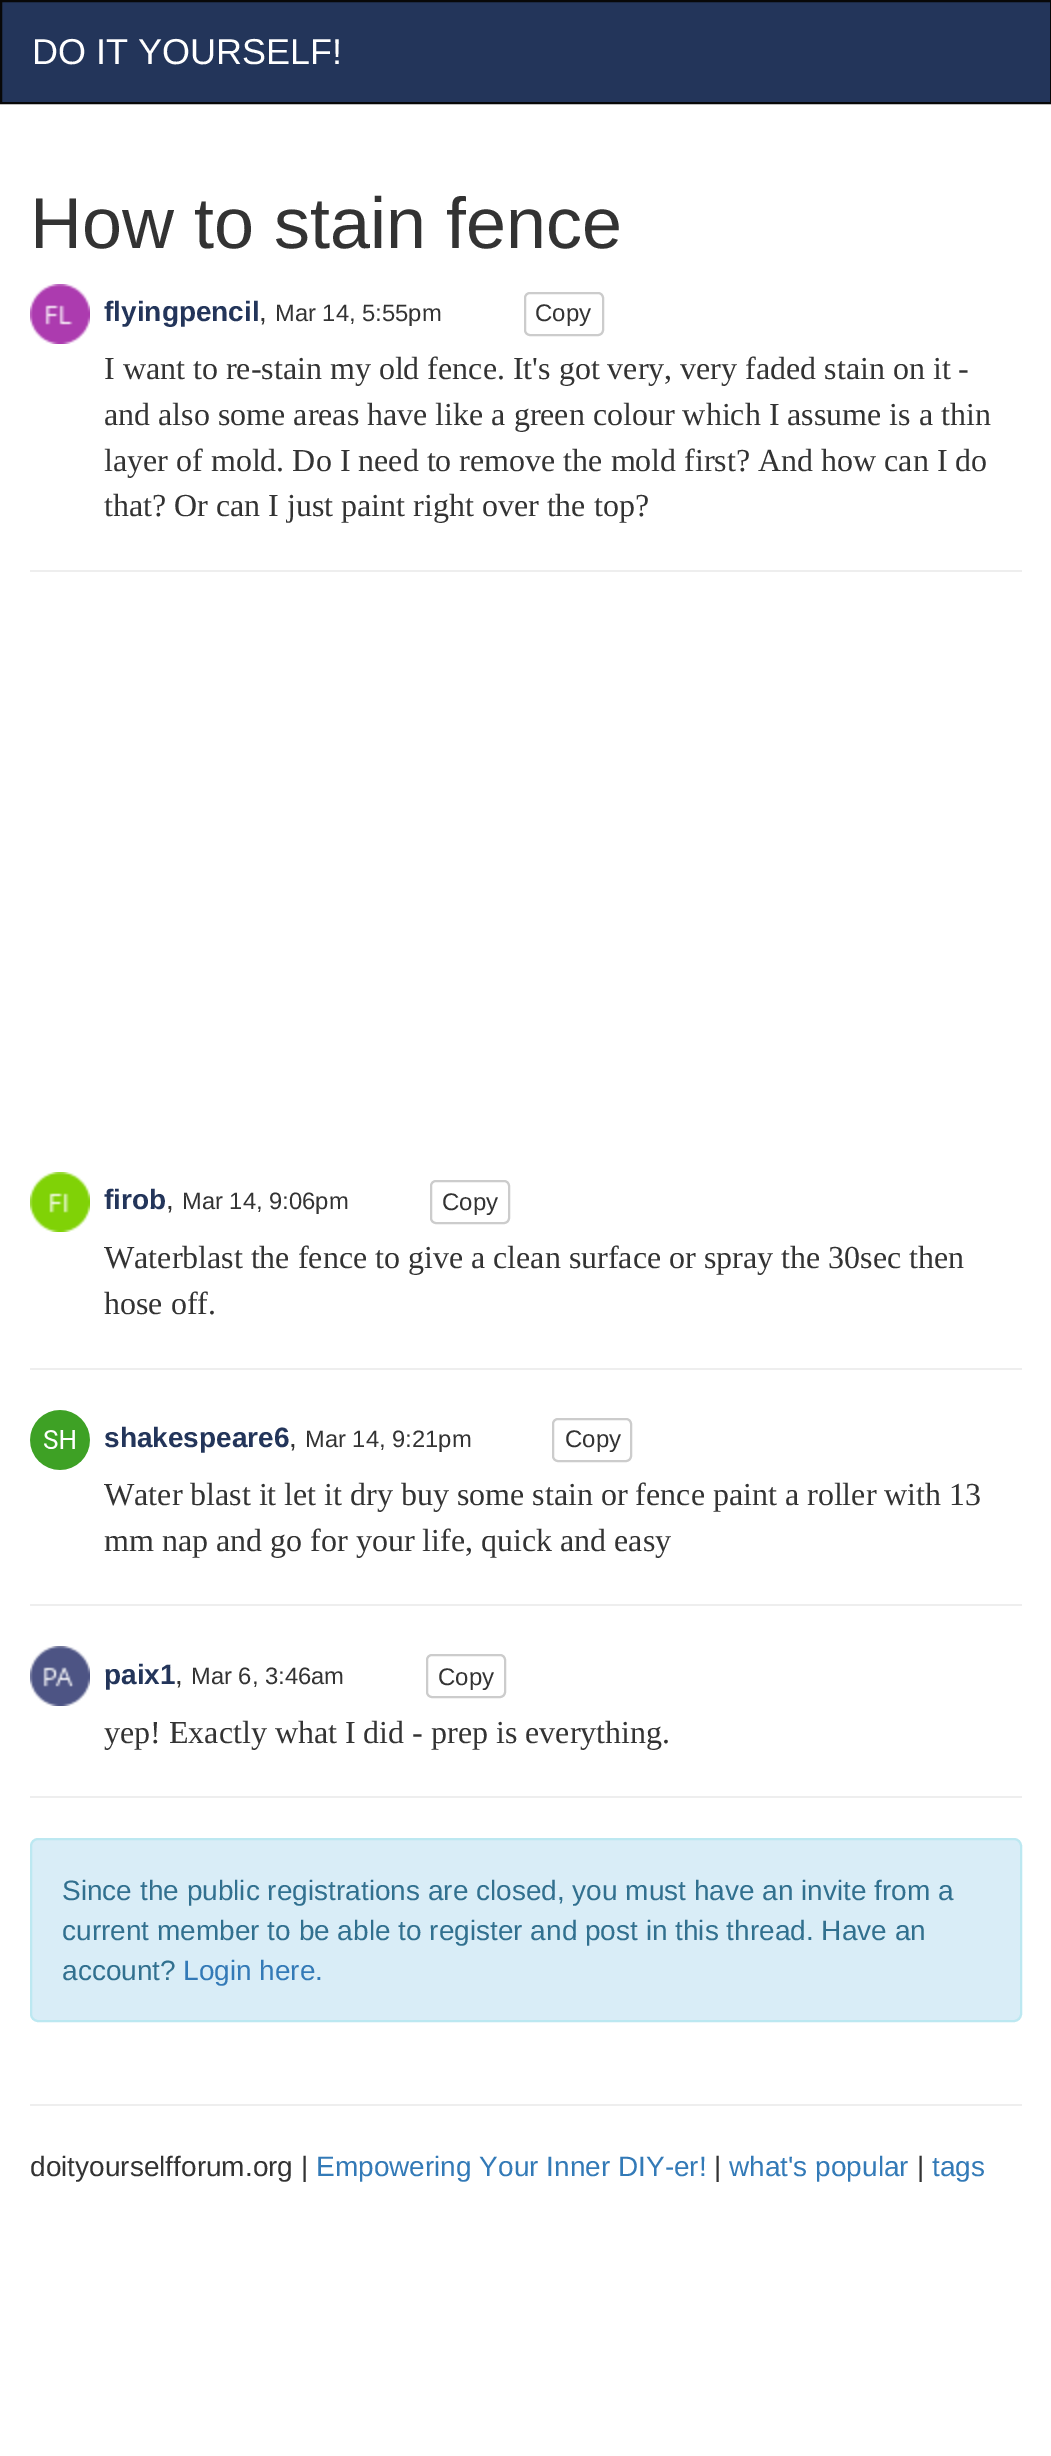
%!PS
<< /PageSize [1051 2456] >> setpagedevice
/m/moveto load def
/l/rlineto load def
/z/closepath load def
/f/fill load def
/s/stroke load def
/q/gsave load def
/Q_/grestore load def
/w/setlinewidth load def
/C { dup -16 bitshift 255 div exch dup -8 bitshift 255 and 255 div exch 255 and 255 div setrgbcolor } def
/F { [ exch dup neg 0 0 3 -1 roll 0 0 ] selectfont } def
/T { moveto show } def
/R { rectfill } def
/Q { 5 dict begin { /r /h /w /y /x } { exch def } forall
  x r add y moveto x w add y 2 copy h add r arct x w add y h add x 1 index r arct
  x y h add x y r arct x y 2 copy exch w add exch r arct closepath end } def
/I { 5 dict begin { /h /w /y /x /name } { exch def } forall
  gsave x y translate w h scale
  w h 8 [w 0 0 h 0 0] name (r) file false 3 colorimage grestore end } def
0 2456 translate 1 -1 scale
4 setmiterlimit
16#FFFFFF C
0 0 1051 2456 R
16#23355A C
1 1 m 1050 0 l 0 102 l -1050 0 l z q f Q_
16#080808 C
2 w
s
/LiberationSans-Regular 36 F
16#FFFFFF C
(DO IT YOURSELF!) 32 64 T
/LiberationSans-Regular 72 F
16#333333 C
(How to stain fence) 30 248 T
(1.rgb) 30 284 60 60 I
/LiberationSans-Bold 28 F
16#23355A C
(flyingpencil) 104 321 T
/LiberationSans-Regular 28 F
16#333333 C
(,) 259 321 T
/LiberationSans-Regular 23.75 F
(Mar 14, 5:55pm) 275 321 T
16#CCCCCC C
525 293 78 42 5 Q s
/LiberationSans-Regular 24 F
16#333333 C
(Copy) 535 321 T
/LiberationSerif-Regular 32 F
(I want to re-stain my old fence. It's got very, very faded stain on it -) 104 379 T
(and also some areas have like a green colour which I assume is a thin) 104 425 T
(layer of mold. Do I need to remove the mold first? And how can I do) 104 471 T
(that? Or can I just paint right over the top?) 104 516 T
16#EEEEEE C
30 570 992 2 R
(2.rgb) 30 1172 60 60 I
/LiberationSans-Bold 28 F
16#23355A C
(firob) 104 1209 T
/LiberationSans-Regular 28 F
16#333333 C
(,) 166 1209 T
/LiberationSans-Regular 23.75 F
(Mar 14, 9:06pm) 182 1209 T
16#CCCCCC C
431 1181 78 42 5 Q s
/LiberationSans-Regular 24 F
16#333333 C
(Copy) 442 1210 T
/LiberationSerif-Regular 32 F
(Waterblast the fence to give a clean surface or spray the 30sec then) 104 1268 T
(hose off.) 104 1314 T
16#EEEEEE C
30 1368 992 2 R
(3.rgb) 30 1410 60 60 I
/LiberationSans-Bold 28 F
16#23355A C
(shakespeare6) 104 1447 T
/LiberationSans-Regular 28 F
16#333333 C
(,) 289 1447 T
/LiberationSans-Regular 23.75 F
(Mar 14, 9:21pm) 305 1447 T
16#CCCCCC C
553 1419 78 42 5 Q s
/LiberationSans-Regular 24 F
16#333333 C
(Copy) 565 1447 T
/LiberationSerif-Regular 32 F
(Water blast it let it dry buy some stain or fence paint a roller with 13) 104 1505 T
(mm nap and go for your life, quick and easy) 104 1551 T
16#EEEEEE C
30 1604 992 2 R
(4.rgb) 30 1646 60 60 I
/LiberationSans-Bold 28 F
16#23355A C
(paix1) 104 1684 T
/LiberationSans-Regular 28 F
16#333333 C
(,) 175 1684 T
/LiberationSans-Regular 23.75 F
(Mar 6, 3:46am) 191 1684 T
16#CCCCCC C
427 1655 78 42 5 Q s
/LiberationSans-Regular 24 F
16#333333 C
(Copy) 438 1685 T
/LiberationSerif-Regular 32 F
(yep! Exactly what I did - prep is everything.) 104 1743 T
16#EEEEEE C
30 1796 992 2 R
16#D9EDF7 C
31 1839 990 182 7 Q q f Q_
16#BCE8F1 C
s
/LiberationSans-Regular 28 F
16#31708F C
(Since the public registrations are closed, you must have an invite from a) 62 1900 T
(current member to be able to register and post in this thread. Have an) 62 1940 T
(account?) 62 1980 T
16#337AB7 C
(Login here.) 183 1980 T
16#EEEEEE C
30 2104 992 2 R
16#333333 C
(doityourselfforum.org |) 30 2176 T
16#337AB7 C
(Empowering Your Inner DIY-er!) 316 2176 T
16#333333 C
(|) 714 2176 T
16#337AB7 C
(what's popular) 729 2176 T
16#333333 C
(|) 917 2176 T
16#337AB7 C
(tags) 932 2176 T
showpage
